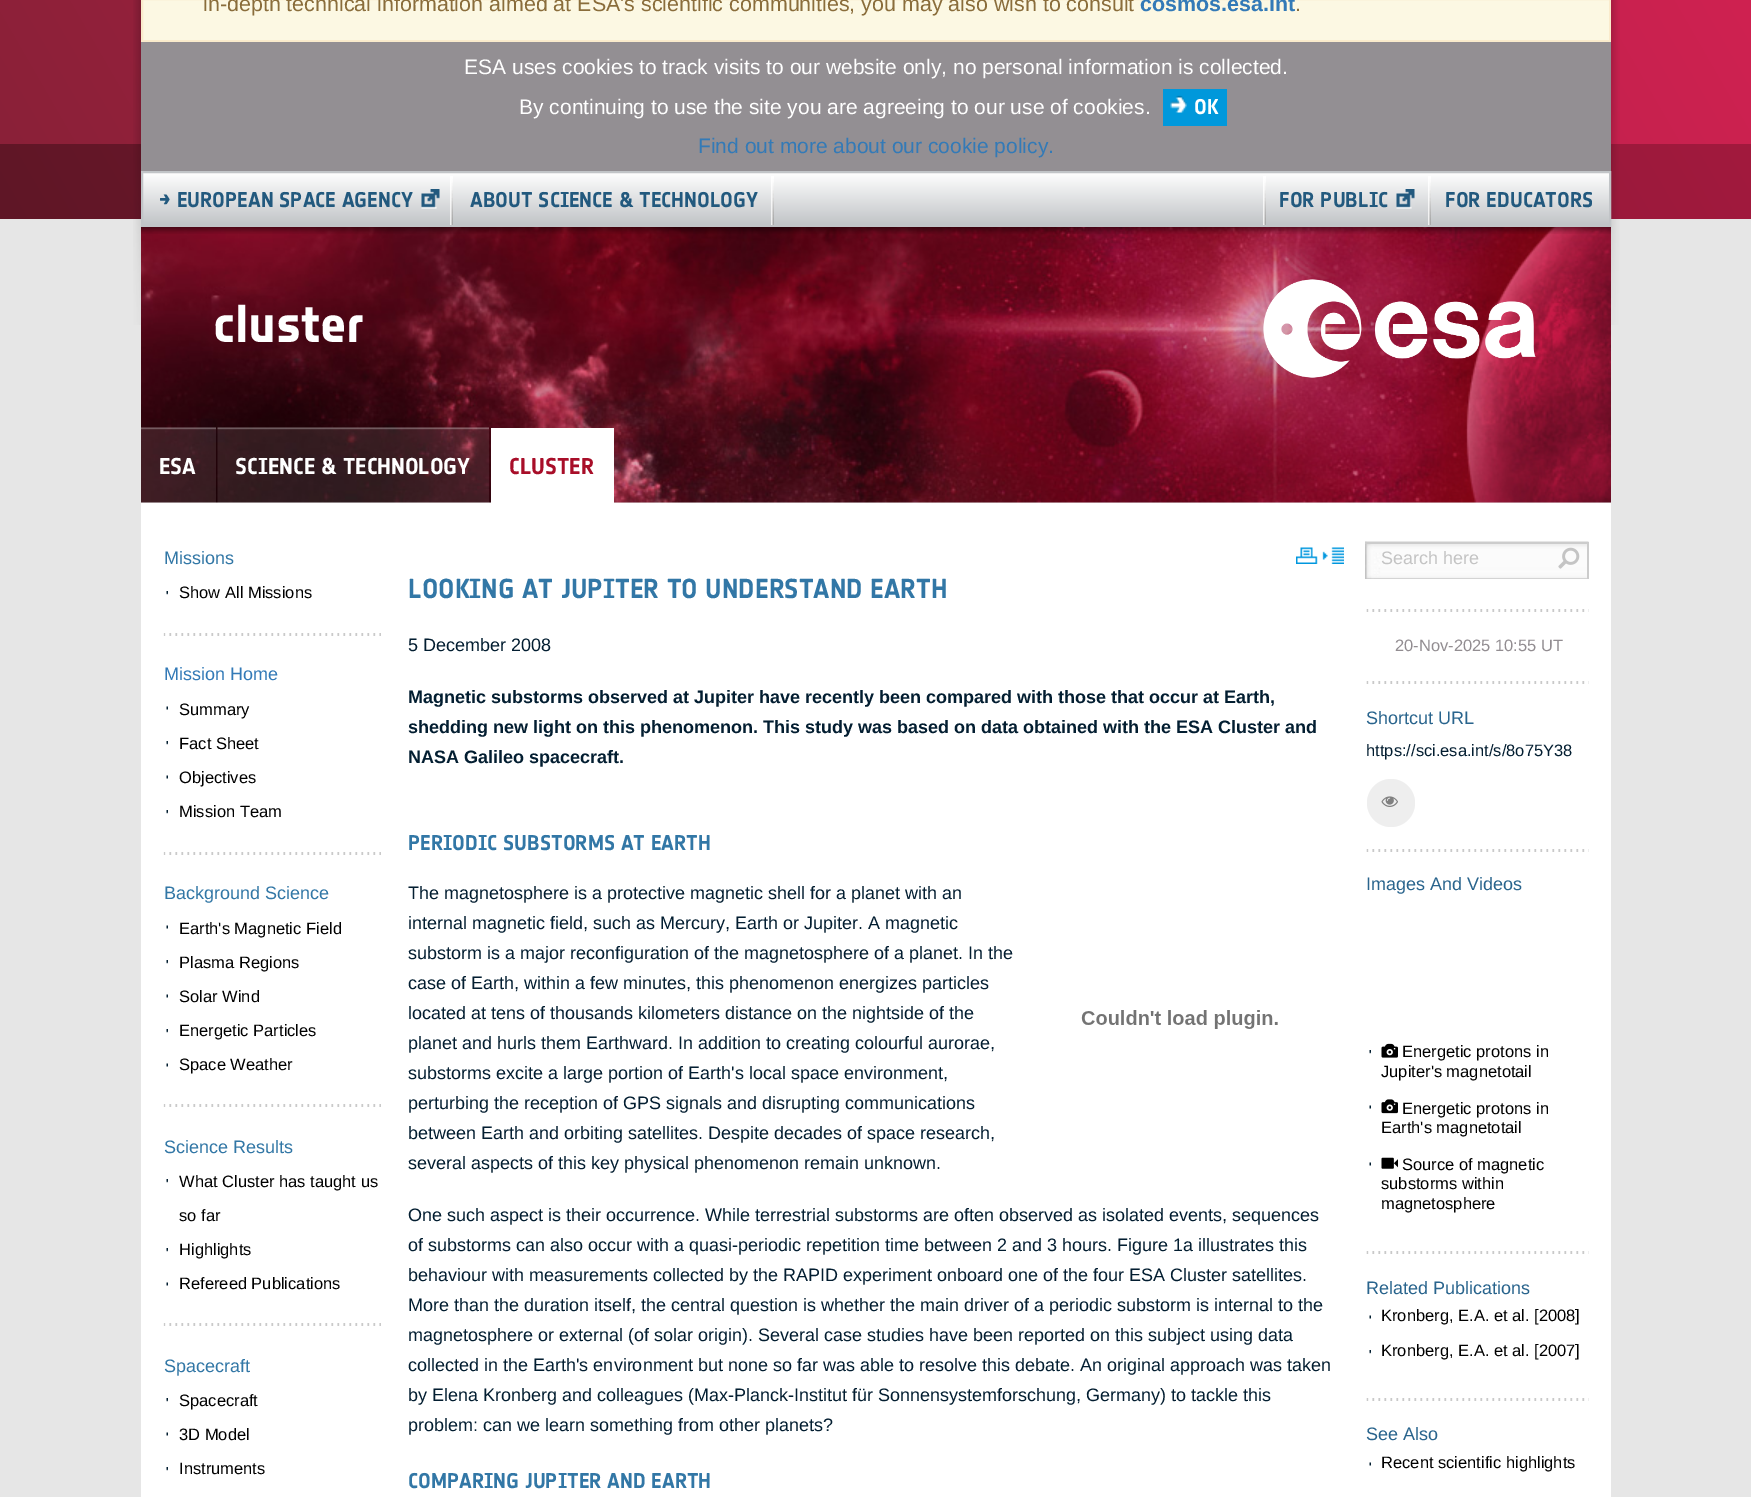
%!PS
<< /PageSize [1751 1497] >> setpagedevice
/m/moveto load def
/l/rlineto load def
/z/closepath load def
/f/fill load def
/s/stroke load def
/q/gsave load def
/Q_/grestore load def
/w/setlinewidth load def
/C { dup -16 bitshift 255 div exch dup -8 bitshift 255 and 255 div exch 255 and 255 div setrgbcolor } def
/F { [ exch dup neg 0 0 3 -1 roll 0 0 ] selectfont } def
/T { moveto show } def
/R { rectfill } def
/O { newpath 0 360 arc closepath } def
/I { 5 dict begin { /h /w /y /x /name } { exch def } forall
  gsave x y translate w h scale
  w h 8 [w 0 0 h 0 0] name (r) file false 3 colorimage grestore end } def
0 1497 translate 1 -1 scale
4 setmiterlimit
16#E6E6E6 C
0 0 1751 1497 R
q 0 0 m 1751 0 l 0 144 l -1751 0 l z clip newpath
<< /ShadingType 2 /ColorSpace /DeviceRGB /Coords [167 433 1585 -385] /Extend [true true] /Function << /FunctionType 2 /Domain [0 1] /C0 [.541 .125 .22] /C1 [.82 .129 .322] /N 1 >> >> shfill Q_
q 0 144 m 1751 0 l 0 75 l -1751 0 l z clip newpath
<< /ShadingType 2 /ColorSpace /DeviceRGB /Coords [203 570 1549 -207] /Extend [true true] /Function << /FunctionType 2 /Domain [0 1] /C0 [.373 .086 .149] /C1 [.635 .102 .243] /N 1 >> >> shfill Q_
(1.rgb) 133 0 8 325 I
16#FCF8E3 C
142 -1 m 1468 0 l 0 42 l -1468 0 l z q f Q_
16#FAEBCC C
2 w
s
/LiberationSans-Regular 21.45 F
16#8A6D3B C
(in-depth technical information aimed at ESA's scientific communities, you may also wish to consult) 203 11 T
/LiberationSans-Bold 21.45 F
16#337AB7 C
(cosmos.esa.int) 1140 11 T
/LiberationSans-Regular 21.45 F
16#8A6D3B C
(.) 1295 11 T
(2.rgb) 1611 0 9 325 I
16#938F93 C
141 42 1470 129 R
/LiberationSans-Regular 21 F
16#FFFFFF C
(ESA uses cookies to track visits to our website only, no personal information is collected.) 464 74 T
(By continuing to use the site you are agreeing to our use of cookies.) 519 114 T
16#0098DB C
1163 89 64 37 R
(3.rgb) 1170 95 17 18 I
/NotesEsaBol-Bold 21 F
16#FFFFFF C
(OK) 1194 114 T
/LiberationSans-Regular 21 F
16#337AB7 C
(Find out more about our cookie policy.) 698 153 T
q 143 173 m 1466 0 l 0 52 l -1466 0 l z clip newpath
<< /ShadingType 2 /ColorSpace /DeviceRGB /Coords [876 172 876 225] /Extend [true true] /Function << /FunctionType 2 /Domain [0 1] /C0 [1 1 1] /C1 [.757 .769 .78] /N 1 >> >> shfill Q_
16#C1C4C7 C
142 172 1468 54 rectstroke
(4.rgb) 450 176 3 49 I
(5.rgb) 421 189 19 20 I
/NotesEsaBol-Bold 21 F
16#22597E C
(→ EUROPEAN SPACE AGENCY) 159 207 T
(6.rgb) 771 176 3 49 I
(ABOUT SCIENCE & TECHNOLOGY) 470 207 T
(4.rgb) 1263 176 3 49 I
(5.rgb) 1396 189 19 20 I
(FOR PUBLIC) 1279 207 T
(6.rgb) 1428 176 3 49 I
(FOR EDUCATORS) 1445 207 T
(7.rgb) 141 227 1470 276 I
(8.rgb) 141 227 1470 7 I
/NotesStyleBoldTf-Bold 52.5 F
16#FFFFFF C
(cluster) 213 342 T
(9.rgb) 1263 279 273 99 I
(10.rgb) 141 427 75 76 I
/NotesEsaBol-Bold 22.5 F
(ESA) 159 474 T
(11.rgb) 217 427 272 76 I
(SCIENCE & TECHNOLOGY) 235 474 T
491 428 123 75 R
16#A80E29 C
(CLUSTER) 509 474 T
16#FFFFFF C
141 503 1470 994 R
/LiberationSans-Regular 18 F
16#3277A6 C
(Missions) 164 564 T
(12.rgb) 166 591 2 4 I
/LiberationSans-Regular 16.5 F
16#000000 C
(Show All Missions) 179 598 T
(13.rgb) 163 633 218 3 I
/LiberationSans-Regular 18 F
16#337AB7 C
(Mission Home) 164 680 T
(14.rgb) 166 706 2 4 I
/LiberationSans-Regular 16.5 F
16#000000 C
(Summary) 179 715 T
(12.rgb) 166 741 2 4 I
(Fact Sheet) 179 749 T
(14.rgb) 166 775 2 4 I
(Objectives) 179 783 T
(12.rgb) 166 810 2 4 I
(Mission Team) 179 817 T
(13.rgb) 163 852 218 3 I
/LiberationSans-Regular 18 F
16#3277A6 C
(Background Science) 164 899 T
(14.rgb) 166 925 2 4 I
/LiberationSans-Regular 16.5 F
16#000000 C
(Earth's Magnetic Field) 179 934 T
(12.rgb) 166 960 2 4 I
(Plasma Regions) 179 968 T
(14.rgb) 166 994 2 4 I
(Solar Wind) 179 1002 T
(12.rgb) 166 1029 2 4 I
(Energetic Particles) 179 1036 T
(14.rgb) 166 1063 2 4 I
(Space Weather) 179 1070 T
(13.rgb) 163 1104 218 3 I
/LiberationSans-Regular 18 F
16#3277A6 C
(Science Results) 164 1153 T
(12.rgb) 166 1179 2 4 I
/LiberationSans-Regular 16.5 F
16#000000 C
(What Cluster has taught us) 179 1187 T
(so far) 179 1221 T
(12.rgb) 166 1248 2 4 I
(Highlights) 179 1255 T
(14.rgb) 166 1282 2 4 I
(Refereed Publications) 179 1289 T
(13.rgb) 163 1323 218 3 I
/LiberationSans-Regular 18 F
16#3277A6 C
(Spacecraft) 164 1372 T
(12.rgb) 166 1398 2 4 I
/LiberationSans-Regular 16.5 F
16#000000 C
(Spacecraft) 179 1406 T
(14.rgb) 166 1432 2 4 I
(3D Model) 179 1440 T
(12.rgb) 166 1467 2 4 I
(Instruments) 179 1474 T
(15.rgb) 1296 547 48 17 I
/NotesEsaBol-Bold 27 F
16#3277A6 C
(LOOKING AT JUPITER TO UNDERSTAND EARTH) 408 598 T
/LiberationSans-Regular 18 F
16#031E31 C
(5 December 2008) 408 651 T
/LiberationSans-Bold 18 F
(Magnetic substorms observed at Jupiter have recently been compared with those that occur at Earth,) 408 703 T
(shedding new light on this phenomenon. This study was based on data obtained with the ESA Cluster and) 408 733 T
(NASA Galileo spacecraft.) 408 763 T
/NotesEsaBol-Bold 21 F
16#3277A6 C
(PERIODIC SUBSTORMS AT EARTH) 408 850 T
/LiberationSans-Regular 18 F
16#031E31 C
(The magnetosphere is a protective magnetic shell for a planet with an) 408 899 T
(internal magnetic field, such as Mercury, Earth or Jupiter. A magnetic) 408 929 T
(substorm is a major reconfiguration of the magnetosphere of a planet. In the) 408 959 T
(case of Earth, within a few minutes, this phenomenon energizes particles) 408 989 T
(located at tens of thousands kilometers distance on the nightside of the) 408 1019 T
(16.rgb) 1081 1010 197 19 I
(planet and hurls them Earthward. In addition to creating colourful aurorae,) 408 1049 T
(substorms excite a large portion of Earth's local space environment,) 408 1079 T
(perturbing the reception of GPS signals and disrupting communications) 408 1109 T
(between Earth and orbiting satellites. Despite decades of space research,) 408 1139 T
(several aspects of this key physical phenomenon remain unknown.) 408 1169 T
(One such aspect is their occurrence. While terrestrial substorms are often observed as isolated events, sequences) 408 1221 T
(of substorms can also occur with a quasi-periodic repetition time between 2 and 3 hours. Figure 1a illustrates this) 408 1251 T
(behaviour with measurements collected by the RAPID experiment onboard one of the four ESA Cluster satellites.) 408 1281 T
(More than the duration itself, the central question is whether the main driver of a periodic substorm is internal to the) 408 1311 T
(magnetosphere or external \(of solar origin\). Several case studies have been reported on this subject using data) 408 1341 T
(collected in the Earth's environment but none so far was able to resolve this debate. An original approach was taken) 408 1371 T
(by Elena Kronberg and colleagues \(Max-Planck-Institut für Sonnensystemforschung, Germany\) to tackle this) 408 1401 T
(problem: can we learn something from other planets?) 408 1431 T
/NotesEsaBol-Bold 21 F
16#3277A6 C
(COMPARING JUPITER AND EARTH) 408 1488 T
(17.rgb) 1365 541 224 38 I
16#CCCCCC C
1365 542 224 2 R
1587 542 2 37 R
/LiberationSans-Regular 18 F
16#C4C4C4 C
(Search here) 1381 564 T
(18.rgb) 1558 547 22 22 I
(19.rgb) 1366 609 223 3 I
/LiberationSans-Regular 16.5 F
16#928D91 C
(20-Nov-2025 10:55 UT) 1395 651 T
(19.rgb) 1366 681 223 3 I
/LiberationSans-Regular 18 F
16#29648D C
(Shortcut URL) 1366 724 T
/LiberationSans-Regular 16.5 F
16#031E31 C
(https://sci.esa.int/s/8o75Y38) 1366 756 T
16#EEEEEE C
1391 803 24 O f
(20.rgb) 1381 796 17 11 I
(19.rgb) 1366 849 223 3 I
/LiberationSans-Regular 18 F
16#29648D C
(Images And Videos) 1366 890 T
(12.rgb) 1369 1050 2 4 I
(21.rgb) 1381 1043 17 15 I
/LiberationSans-Regular 16.5 F
16#000000 C
(Energetic protons in) 1402 1057 T
(Jupiter's magnetotail) 1381 1077 T
(14.rgb) 1369 1105 2 4 I
(22.rgb) 1381 1099 17 15 I
(Energetic protons in) 1402 1114 T
(Earth's magnetotail) 1381 1133 T
(14.rgb) 1369 1162 2 4 I
(23.rgb) 1381 1157 17 12 I
(Source of magnetic) 1402 1170 T
(substorms within) 1381 1189 T
(magnetosphere) 1381 1209 T
(19.rgb) 1366 1251 223 3 I
/LiberationSans-Regular 18 F
16#29648D C
(Related Publications) 1366 1294 T
(14.rgb) 1369 1315 2 4 I
/LiberationSans-Regular 16.5 F
16#000000 C
(Kronberg, E.A. et al. [2008]) 1381 1321 T
(12.rgb) 1369 1350 2 4 I
(Kronberg, E.A. et al. [2007]) 1381 1356 T
(19.rgb) 1366 1398 223 3 I
/LiberationSans-Regular 18 F
16#29648D C
(See Also) 1366 1440 T
(14.rgb) 1369 1462 2 4 I
/LiberationSans-Regular 16.5 F
16#000000 C
(Recent scientific highlights) 1381 1468 T
showpage
